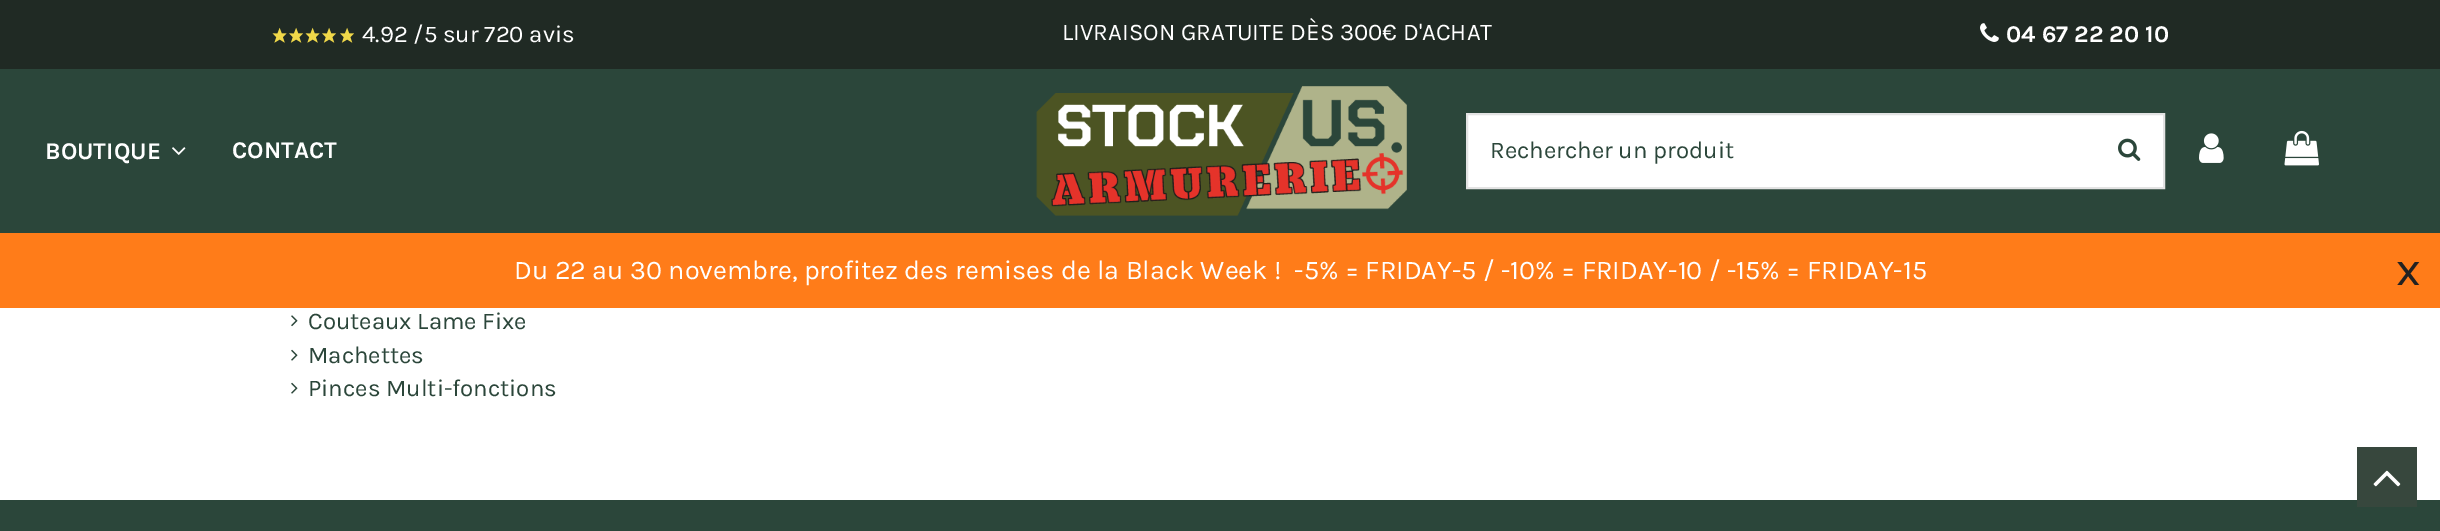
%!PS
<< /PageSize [2440 531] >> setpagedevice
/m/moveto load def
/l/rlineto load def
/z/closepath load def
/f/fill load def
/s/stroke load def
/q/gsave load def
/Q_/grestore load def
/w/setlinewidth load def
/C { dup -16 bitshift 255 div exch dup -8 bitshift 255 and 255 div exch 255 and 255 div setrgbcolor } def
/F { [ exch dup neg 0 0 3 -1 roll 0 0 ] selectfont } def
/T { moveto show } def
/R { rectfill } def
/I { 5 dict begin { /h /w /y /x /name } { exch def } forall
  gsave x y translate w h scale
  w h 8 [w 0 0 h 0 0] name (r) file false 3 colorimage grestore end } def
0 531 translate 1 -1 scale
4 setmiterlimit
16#FFFFFF C
0 0 2440 531 R
16#2B463A C
0 69 2440 164 R
16#202A24 C
0 0 2440 69 R
(1.rgb) 272 27 82 16 I
/Karla-Regular 24 F
16#FFFFFF C
(4.92 /5 sur 720 avis) 362 42 T
(LIVRAISON GRATUITE DÈS 300€ D'ACHAT) 1062 40 T
(2.rgb) 1980 23 19 19 I
/Karla-Bold 24 F
(04 67 22 20 10) 2006 42 T
(BOUTIQUE) 45 159 T
(3.rgb) 172 147 14 8 I
(CONTACT) 232 158 T
(4.rgb) 1036 86 371 130 I
1467 114 m 697 0 l 0 74 l -697 0 l z q f Q_
16#E3E3E3 C
2 w
s
/Karla-Regular 24 F
16#2B463A C
(Rechercher un produit) 1490 158 T
(5.rgb) 2118 138 23 23 I
(6.rgb) 2199 133 25 30 I
(7.rgb) 2284 130 35 36 I
16#FF7C19 C
0 233 2440 75 R
/Karla-Regular 27 F
16#FFFFFF C
(Du 22 au 30 novembre, profitez des remises de la Black Week !  -5% = FRIDAY-5 / -10% = FRIDAY-10 / -15% = FRIDAY-15) 514 279 T
/Karla-Regular 48 F
16#222222 C
(x) 2396 285 T
(8.rgb) 291 315 7 12 I
/Karla-Regular 24 F
16#2B463A C
(Couteaux Lame Fixe) 308 329 T
(9.rgb) 291 349 7 12 I
(Machettes) 308 363 T
(9.rgb) 291 382 7 12 I
(Pinces Multi-fonctions) 308 396 T
0 500 2440 31 R
16#37473D C
2357 447 60 60 R
(10.rgb) 2373 470 28 17 I
showpage
